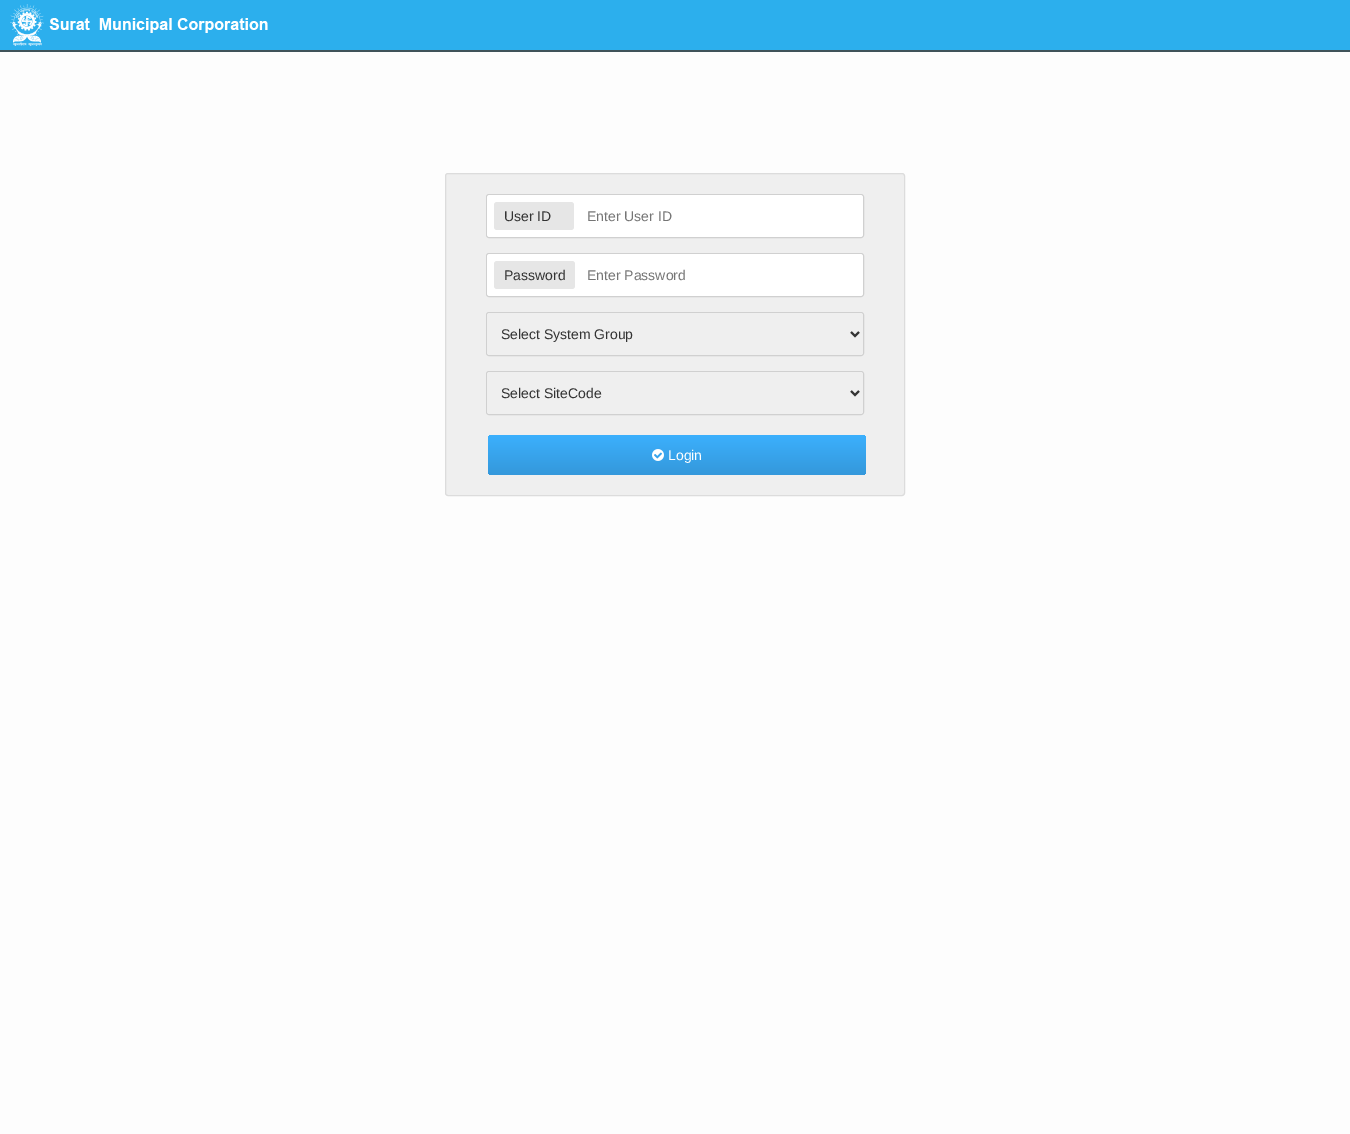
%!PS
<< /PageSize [1350 1134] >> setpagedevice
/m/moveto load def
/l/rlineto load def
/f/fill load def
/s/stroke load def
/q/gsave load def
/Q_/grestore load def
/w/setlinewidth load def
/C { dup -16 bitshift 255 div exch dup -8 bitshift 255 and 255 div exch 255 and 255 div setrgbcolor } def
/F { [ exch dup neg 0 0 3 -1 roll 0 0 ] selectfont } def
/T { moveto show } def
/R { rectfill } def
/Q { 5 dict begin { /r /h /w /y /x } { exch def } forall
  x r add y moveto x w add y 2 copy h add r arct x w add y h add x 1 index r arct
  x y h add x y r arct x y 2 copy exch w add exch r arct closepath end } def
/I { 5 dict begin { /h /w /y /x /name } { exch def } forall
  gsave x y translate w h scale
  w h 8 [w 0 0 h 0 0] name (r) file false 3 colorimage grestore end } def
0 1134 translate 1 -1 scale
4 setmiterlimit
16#FDFDFD C
0 0 1350 1134 R
16#2CAFED C
0 0 1350 50 R
16#405359 C
0 50 1350 2 R
(1.rgb) 10 4 258 42 I
16#EFEFEF C
445.5 173.5 459 322 2.5 Q q f Q_
16#DCDCDC C
s
16#FDFDFD C
486.5 194.5 377 43 2.5 Q q f Q_
16#D0D0D0 C
s
16#FFFFFF C
487 195 376 42 3 Q f
16#E6E6E6 C
494 202 80 28 3 Q f
/LiberationSans-Regular 14 F
16#333333 C
(User ID) 504 221 T
16#757575 C
(Enter User ID) 587 221 T
16#FDFDFD C
486.5 253.5 377 43 2.5 Q q f Q_
16#D0D0D0 C
s
16#FFFFFF C
487 254 376 42 3 Q f
16#E6E6E6 C
494 261 81 28 3 Q f
16#333333 C
(Password) 504 280 T
16#757575 C
(Enter Password) 587 280 T
16#FDFDFD C
486.5 312.5 377 43 2.5 Q q f Q_
16#D0D0D0 C
s
16#EFEFEF C
487 313 376 42 3 Q f
16#333333 C
2 w
851 332 m 4 4 l 4 -4 l s
(Select System Group) 501 339 T
16#FDFDFD C
486.5 371.5 377 43 2.5 Q q f Q_
16#D0D0D0 C
1 w
s
16#EFEFEF C
487 372 376 42 3 Q f
16#333333 C
2 w
851 391 m 4 4 l 4 -4 l s
(Select SiteCode) 501 398 T
q 488 435 378 40 4 Q clip newpath
<< /ShadingType 2 /ColorSpace /DeviceRGB /Coords [677 435 677 475] /Extend [true true] /Function << /FunctionType 2 /Domain [0 1] /C0 [.235 .69 .992] /C1 [.204 .596 .859] /N 1 >> >> shfill Q_
(2.rgb) 652 449 12 12 I
16#FFFFFF C
(Login) 668 460 T
showpage
